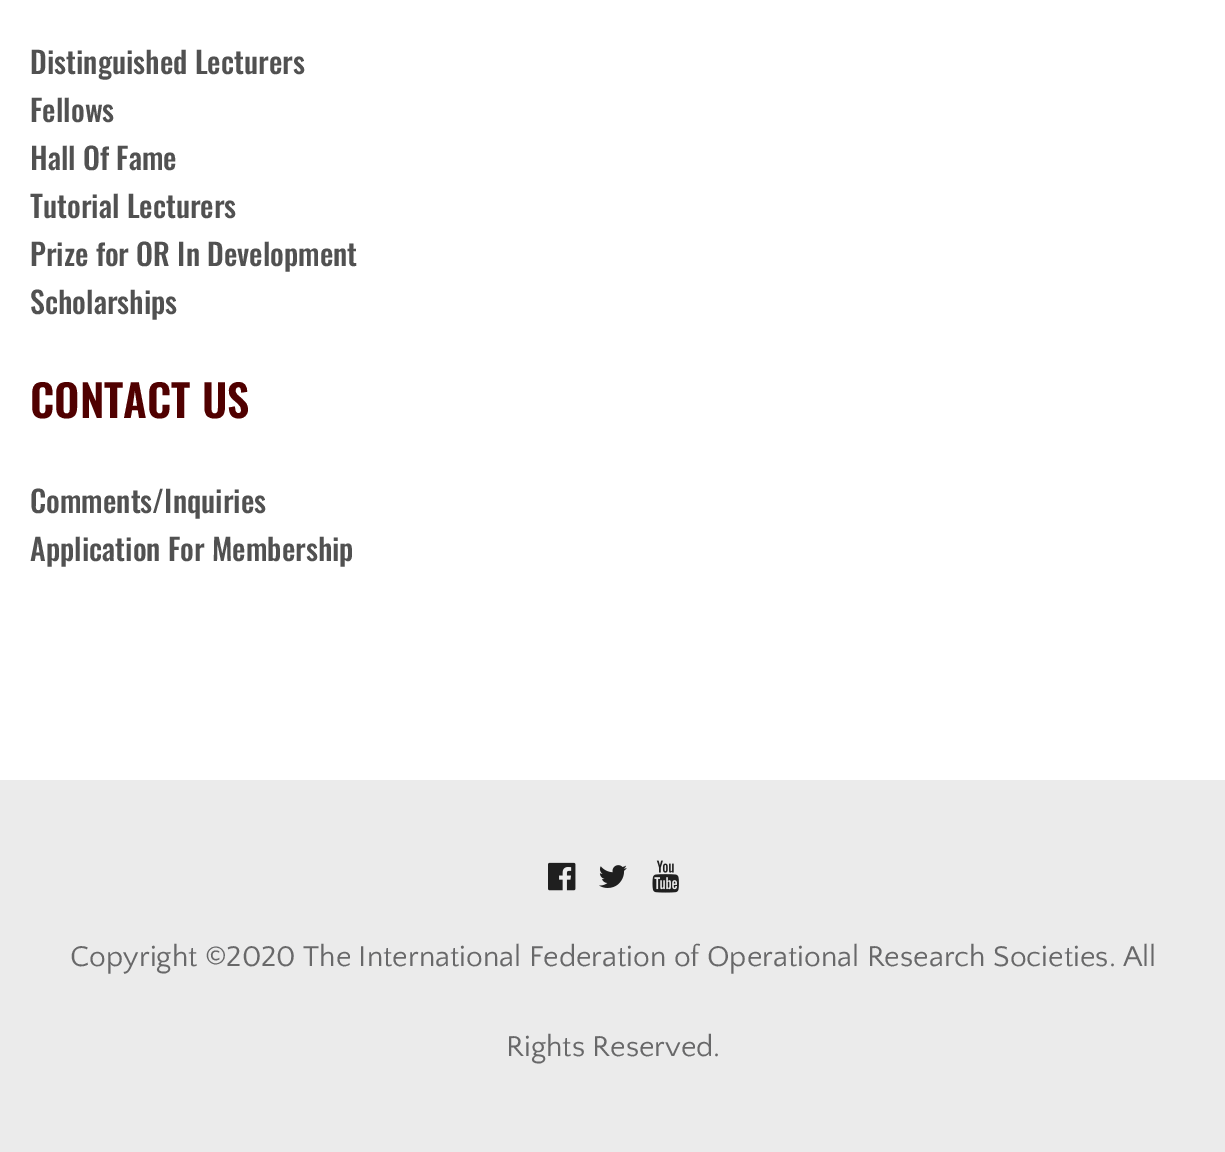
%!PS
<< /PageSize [1225 1152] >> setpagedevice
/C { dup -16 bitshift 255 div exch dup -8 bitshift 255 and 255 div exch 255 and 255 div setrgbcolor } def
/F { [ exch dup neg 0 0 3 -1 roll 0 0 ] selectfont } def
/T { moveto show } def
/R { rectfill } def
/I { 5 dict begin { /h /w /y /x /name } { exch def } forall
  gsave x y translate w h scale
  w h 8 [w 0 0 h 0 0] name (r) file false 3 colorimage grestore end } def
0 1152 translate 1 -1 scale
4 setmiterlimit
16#FFFFFF C
0 0 1225 1152 R
/Oswald-Medium 30 F
16#515151 C
(Distinguished Lecturers) 30 74 T
(Fellows) 30 122 T
(Hall Of Fame) 30 170 T
(Tutorial Lecturers) 30 218 T
(Prize for OR In Development) 30 266 T
(Scholarships) 30 314 T
/Oswald-SemiBold 44 F
16#500000 C
(CONTACT US) 30 418 T
/Oswald-Medium 30 F
16#515151 C
(Comments/Inquiries) 30 513 T
(Application For Membership) 30 561 T
16#EBEBEB C
0 780 1225 372 R
(1.rgb) 548 862 28 29 I
(2.rgb) 599 865 28 23 I
(3.rgb) 652 860 27 33 I
/QuattrocentoSans-Regular 30 F
16#686869 C
(Copyright ©2020 The International Federation of Operational Research Societies. All) 70 966 T
(Rights Reserved.) 506 1056 T
showpage
